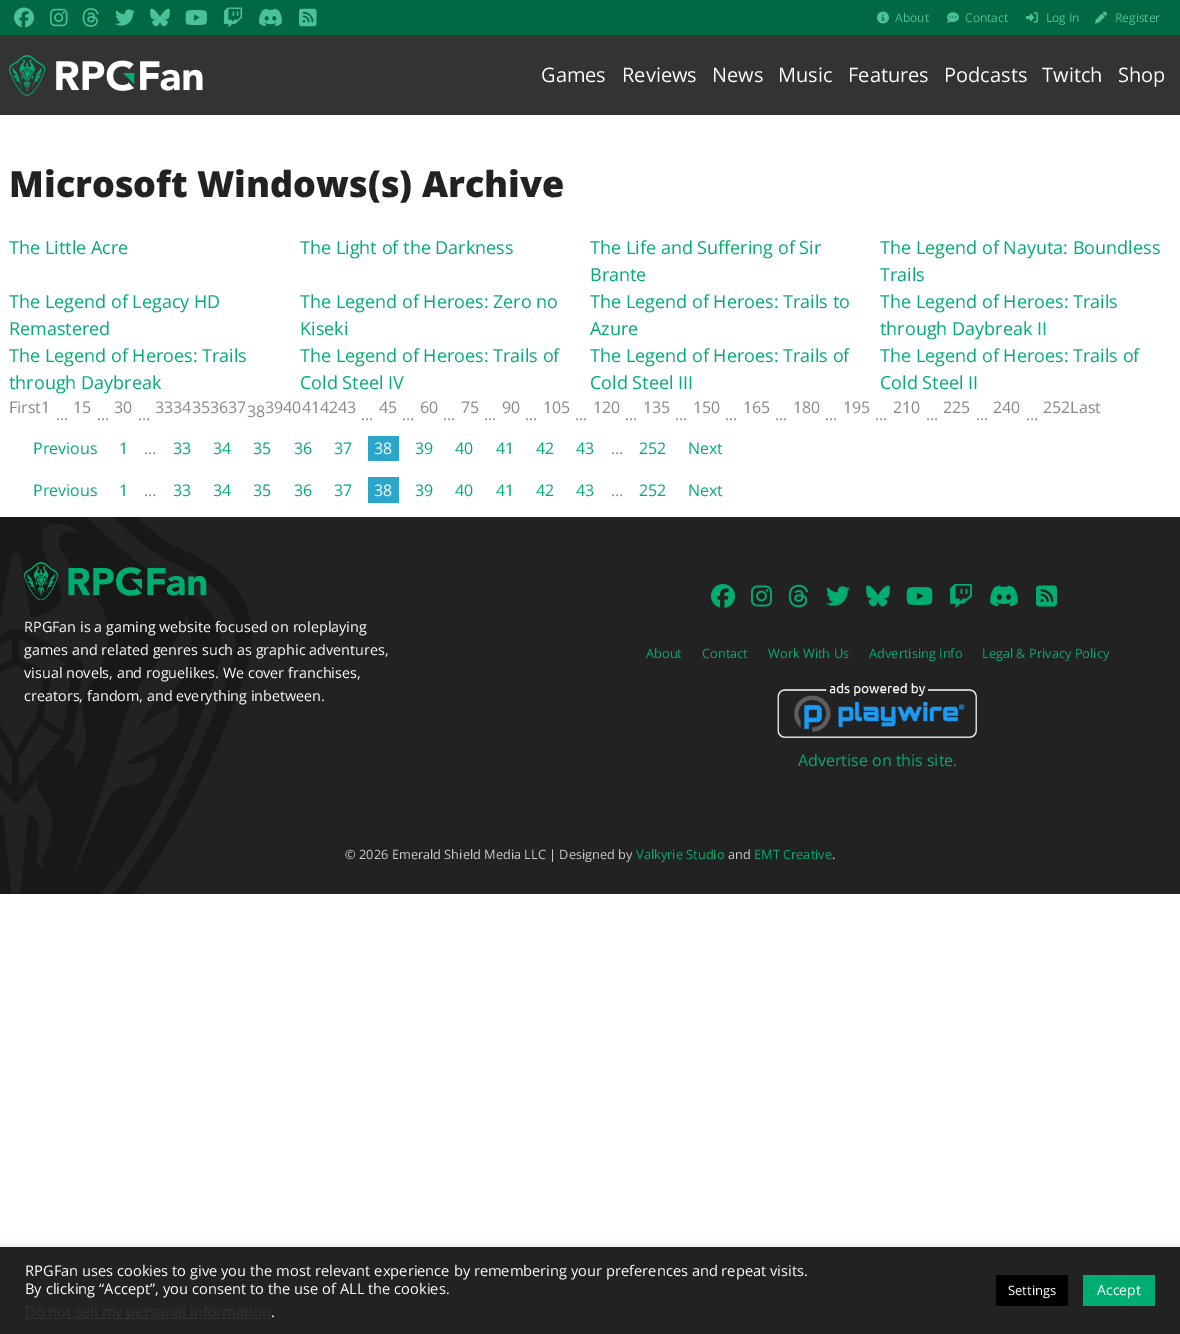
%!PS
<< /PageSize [1180 1334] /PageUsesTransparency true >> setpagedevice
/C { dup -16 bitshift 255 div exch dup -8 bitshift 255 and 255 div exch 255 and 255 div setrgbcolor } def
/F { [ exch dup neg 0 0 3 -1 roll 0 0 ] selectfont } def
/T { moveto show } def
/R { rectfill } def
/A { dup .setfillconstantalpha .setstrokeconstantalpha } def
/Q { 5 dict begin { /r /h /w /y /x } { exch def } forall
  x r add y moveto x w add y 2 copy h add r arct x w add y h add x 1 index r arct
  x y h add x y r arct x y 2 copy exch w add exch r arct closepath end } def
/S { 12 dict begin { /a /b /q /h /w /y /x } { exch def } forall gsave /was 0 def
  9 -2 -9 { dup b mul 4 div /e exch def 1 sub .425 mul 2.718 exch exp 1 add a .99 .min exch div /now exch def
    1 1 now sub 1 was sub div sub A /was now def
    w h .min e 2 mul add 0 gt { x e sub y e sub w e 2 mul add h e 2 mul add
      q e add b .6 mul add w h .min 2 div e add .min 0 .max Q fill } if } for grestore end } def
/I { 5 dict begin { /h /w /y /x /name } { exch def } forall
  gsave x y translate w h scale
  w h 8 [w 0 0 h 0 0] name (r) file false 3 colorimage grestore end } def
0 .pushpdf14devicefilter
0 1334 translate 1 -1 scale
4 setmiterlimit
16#FFFFFF C
0 0 1180 1334 R
16#006944 C
0 0 1180 35 R
(1.rgb) 14 7 20 21 I
(2.rgb) 50 8 18 19 I
(3.rgb) 82 8 17 19 I
(4.rgb) 115 9 20 17 I
(5.rgb) 150 8 20 19 I
(6.rgb) 185 10 22 15 I
(7.rgb) 223 7 20 21 I
(8.rgb) 259 8 23 19 I
(9.rgb) 299 8 18 19 I
(10.rgb) 877 11 12 13 I
/OpenSans-Regular 12 F
16#4BC197 C
(About) 895 22 T
(11.rgb) 947 12 12 11 I
(Contact) 965 22 T
(12.rgb) 1026 12 12 11 I
(Log In) 1046 22 T
(13.rgb) 1095 11 12 13 I
(Register) 1115 22 T
16#333333 C
0 35 1180 80 R
(14.rgb) 9 55 194 41 I
/OpenSans-Regular 20 F
16#FEFEFE C
(Games) 541 82 T
(Reviews) 622 82 T
(News) 712 82 T
(Music) 778 82 T
(Features) 848 82 T
(Podcasts) 944 82 T
(Twitch) 1042 82 T
(Shop) 1118 82 T
/OpenSans-ExtraBold 36 F
16#222222 C
(Microsoft Windows\(s\) Archive) 9 197 T
/OpenSans-Regular 18 F
16#00AD70 C
(The Little Acre) 9 254 T
(The Light of the Darkness) 300 254 T
(The Life and Suffering of Sir) 590 254 T
(Brante) 590 281 T
(The Legend of Nayuta: Boundless) 880 254 T
(Trails) 880 281 T
(The Legend of Legacy HD) 9 308 T
(Remastered) 9 335 T
(The Legend of Heroes: Zero no) 300 308 T
(Kiseki) 300 335 T
(The Legend of Heroes: Trails to) 590 308 T
(Azure) 590 335 T
(The Legend of Heroes: Trails) 880 308 T
(through Daybreak II) 880 335 T
(The Legend of Heroes: Trails) 9 362 T
(through Daybreak) 9 389 T
(The Legend of Heroes: Trails of) 300 362 T
(Cold Steel IV) 300 389 T
(The Legend of Heroes: Trails of) 590 362 T
(Cold Steel III) 590 389 T
(The Legend of Heroes: Trails of) 880 362 T
(Cold Steel II) 880 389 T
/OpenSans-Regular 16 F
16#888888 C
(First1) 9 413 T
(15) 73 413 T
(30) 114 413 T
(3334353637) 155 413 T
(38) 247 417 T
(3940414243) 265 413 T
(45) 379 413 T
(60) 420 413 T
(75) 461 413 T
(90) 502 413 T
(105) 543 413 T
(120) 593 413 T
(135) 643 413 T
(150) 693 413 T
(165) 743 413 T
(180) 793 413 T
(195) 843 413 T
(210) 893 413 T
(225) 943 413 T
(240) 993 413 T
(252Last) 1043 413 T
(...) 56 420 T
(...) 97 420 T
(...) 138 420 T
(...) 361 420 T
(...) 402 420 T
(...) 443 420 T
(...) 484 420 T
(...) 525 420 T
(...) 575 420 T
(...) 625 420 T
(...) 675 420 T
(...) 725 420 T
(...) 775 420 T
(...) 825 420 T
(...) 875 420 T
(...) 926 420 T
(...) 976 420 T
(...) 1026 420 T
16#00AD70 C
(Previous) 33 454 T
(1) 119 454 T
16#888888 C
(…) 144 454 T
16#00AD70 C
(33) 173 454 T
(34) 213 454 T
(35) 253 454 T
(36) 294 454 T
(37) 334 454 T
16#2BA6CB C
368 436 31 25 R
16#FEFEFE C
(38) 374 454 T
16#00AD70 C
(39) 415 454 T
(40) 455 454 T
(41) 496 454 T
(42) 536 454 T
(43) 576 454 T
16#888888 C
(…) 611 454 T
16#00AD70 C
(252) 639 454 T
(Next) 688 454 T
(Previous) 33 496 T
(1) 119 496 T
16#888888 C
(…) 144 496 T
16#00AD70 C
(33) 173 496 T
(34) 213 496 T
(35) 253 496 T
(36) 294 496 T
(37) 334 496 T
16#2BA6CB C
368 477 31 26 R
16#FEFEFE C
(38) 374 496 T
16#00AD70 C
(39) 415 496 T
(40) 455 496 T
(41) 496 496 T
(42) 536 496 T
(43) 576 496 T
16#888888 C
(…) 611 496 T
16#00AD70 C
(252) 639 496 T
(Next) 688 496 T
16#222222 C
0 517 1180 377 R
(15.rgb) 0 517 252 377 I
(16.rgb) 24 562 183 38 I
/OpenSans-Regular 14.4 F
16#FEFEFE C
(RPGFan is a gaming website focused on roleplaying) 24 632 T
(games and related genres such as graphic adventures,) 24 655 T
(visual novels, and roguelikes. We cover franchises,) 24 678 T
(creators, fandom, and everything inbetween.) 24 701 T
(17.rgb) 711 584 24 24 I
(18.rgb) 751 585 21 22 I
(19.rgb) 788 584 21 24 I
(20.rgb) 826 586 24 20 I
(21.rgb) 866 585 24 22 I
(22.rgb) 906 587 27 18 I
(23.rgb) 950 584 22 24 I
(24.rgb) 990 585 28 22 I
(25.rgb) 1036 585 21 22 I
/OpenSans-Regular 12.8 F
16#00AD70 C
(About) 646 658 T
(Contact) 702 658 T
(Work With Us) 768 658 T
(Advertising Info) 869 658 T
(Legal & Privacy Policy) 982 658 T
(26.rgb) 777 683 200 55 I
/OpenSans-Regular 16 F
(Advertise on this site.) 798 766 T
/OpenSans-Regular 12.8 F
16#CCCCCC C
(© 2026 Emerald Shield Media LLC | Designed by) 345 859 T
16#00AD70 C
(Valkyrie Studio) 636 859 T
16#CCCCCC C
(and) 728 859 T
16#00AD70 C
(EMT Creative) 754 859 T
16#CCCCCC C
(.) 832 859 T
16#ACABAB C
0 1246 1180 87 0 5 .3 S
16#222222 C
0 1247 1180 87 R
/OpenSans-Regular 14.67 F
16#FEFEFE C
(RPGFan uses cookies to give you the most relevant experience by remembering your preferences and repeat visits.) 25 1276 T
(By clicking “Accept”, you consent to the use of ALL the cookies.) 25 1294 T
16#333333 C
25 1318 246 1 R
(Do not sell my personal information) 25 1317 T
16#FEFEFE C
(.) 271 1317 T
16#000000 C
996 1275 72 31 R
/OpenSans-Regular 13 F
16#FEFEFE C
(Settings) 1008 1295 T
16#00AD70 C
1083 1275 72 31 R
/OpenSans-Regular 14 F
16#FEFEFE C
(Accept) 1097 1295 T
.poppdf14devicefilter showpage
